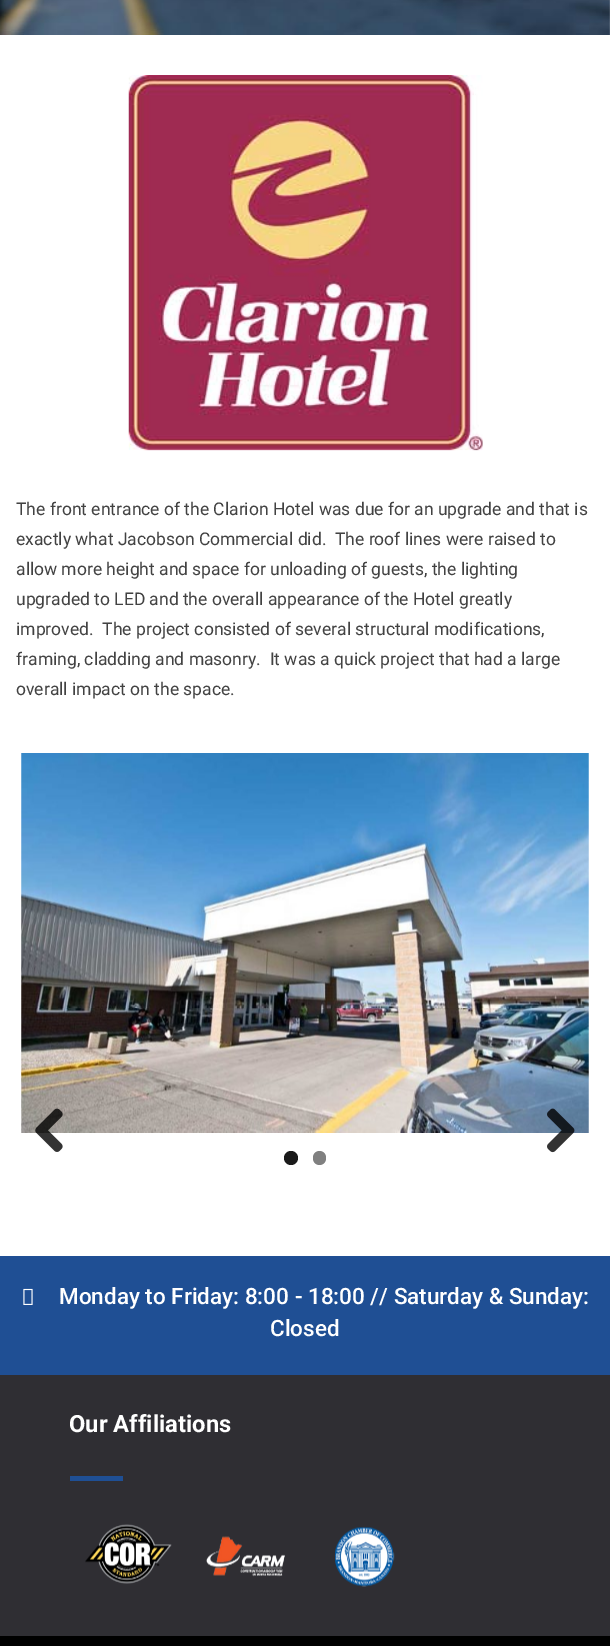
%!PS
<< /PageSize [610 1646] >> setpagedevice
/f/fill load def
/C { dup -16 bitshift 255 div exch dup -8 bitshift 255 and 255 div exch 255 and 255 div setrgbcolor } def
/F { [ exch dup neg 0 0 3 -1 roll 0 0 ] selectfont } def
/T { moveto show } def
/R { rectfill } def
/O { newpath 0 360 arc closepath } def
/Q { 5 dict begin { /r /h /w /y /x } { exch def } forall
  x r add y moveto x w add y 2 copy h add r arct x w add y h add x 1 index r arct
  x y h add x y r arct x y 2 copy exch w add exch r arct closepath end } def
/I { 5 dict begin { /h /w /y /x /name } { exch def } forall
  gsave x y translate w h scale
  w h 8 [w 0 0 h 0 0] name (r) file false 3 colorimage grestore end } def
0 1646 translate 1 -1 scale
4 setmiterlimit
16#FFFFFF C
0 0 610 1646 R
(1.rgb) 0 0 610 35 I
(2.rgb) 128 75 355 376 I
/Roboto-Regular 17.5 F
16#424242 C
(The front entrance of the Clarion Hotel was due for an upgrade and that is) 16 515 T
(exactly what Jacobson Commercial did.  The roof lines were raised to) 16 545 T
(allow more height and space for unloading of guests, the lighting) 16 575 T
(upgraded to LED and the overall appearance of the Hotel greatly) 16 605 T
(improved.  The project consisted of several structural modifications,) 16 635 T
(framing, cladding and masonry.  It was a quick project that had a large) 16 665 T
(overall impact on the space.) 16 695 T
(3.rgb) 21 753 568 380 I
(4.rgb) 35 1108 28 44 I
(5.rgb) 547 1108 28 45 I
16#1A1A1A C
291 1158 7 O f
16#808080 C
313 1151 13 14 6.5 Q f
16#2F2E33 C
0 1375 610 261 R
16#1F4F94 C
0 1256 610 119 R
(6.rgb) 23 1288 10 17 I
/Roboto-Medium 22.5 F
16#FFFFFF C
(Monday to Friday: 8:00 - 18:00 // Saturday & Sunday:) 59 1304 T
(Closed) 270 1336 T
/Roboto-Bold 23.75 F
(Our Affiliations) 69 1432 T
16#1F4F94 C
70 1476 53 5 R
(7.rgb) 85 1524 87 60 I
(8.rgb) 206 1536 79 41 I
(9.rgb) 335 1527 60 60 I
16#000000 C
0 1636 610 10 R
showpage
